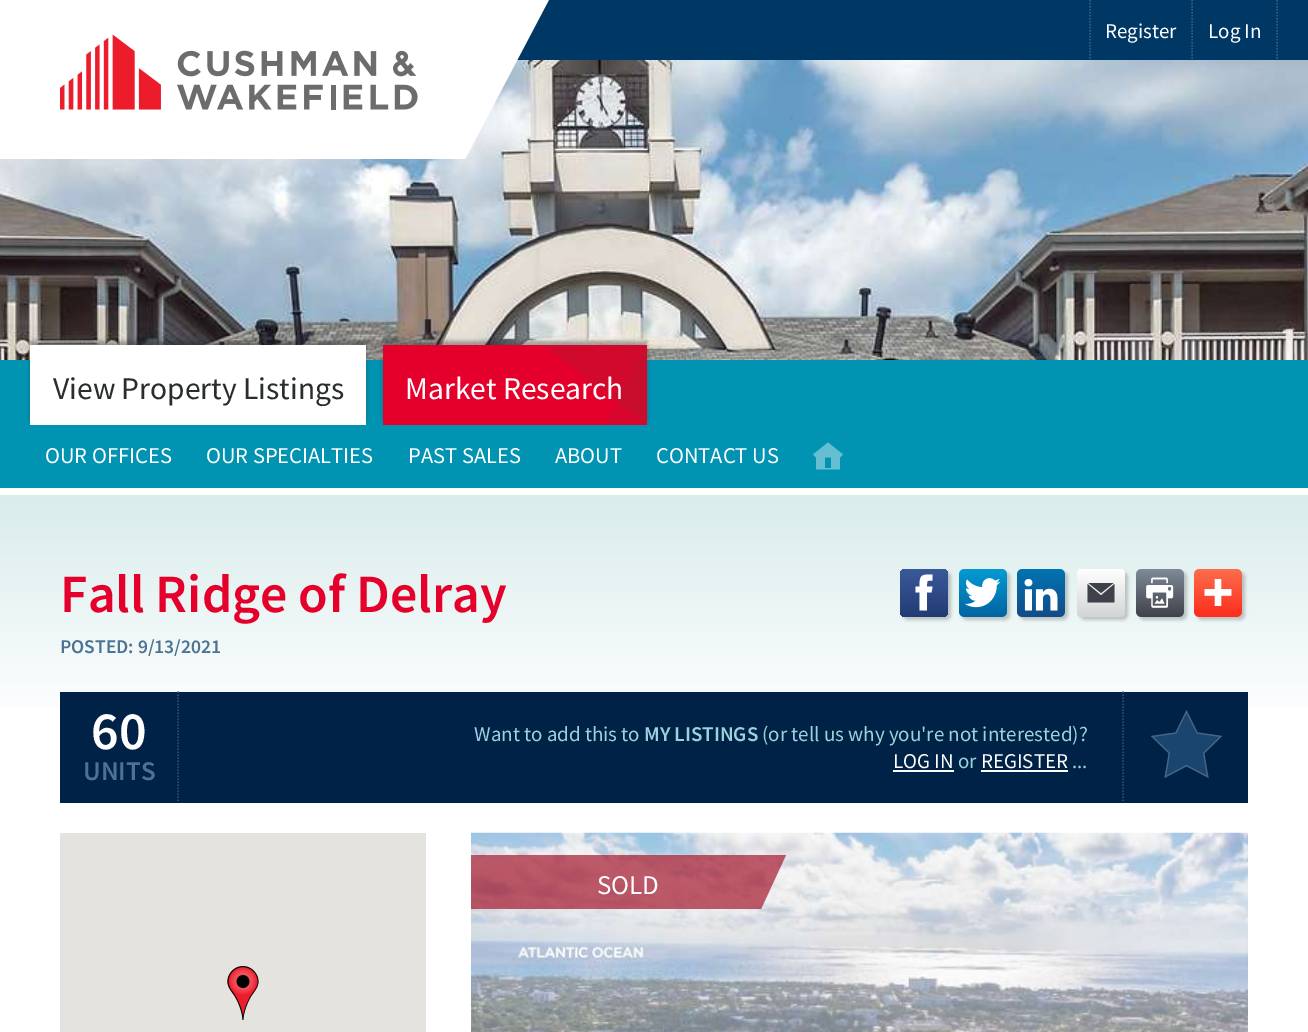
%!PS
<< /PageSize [1308 1032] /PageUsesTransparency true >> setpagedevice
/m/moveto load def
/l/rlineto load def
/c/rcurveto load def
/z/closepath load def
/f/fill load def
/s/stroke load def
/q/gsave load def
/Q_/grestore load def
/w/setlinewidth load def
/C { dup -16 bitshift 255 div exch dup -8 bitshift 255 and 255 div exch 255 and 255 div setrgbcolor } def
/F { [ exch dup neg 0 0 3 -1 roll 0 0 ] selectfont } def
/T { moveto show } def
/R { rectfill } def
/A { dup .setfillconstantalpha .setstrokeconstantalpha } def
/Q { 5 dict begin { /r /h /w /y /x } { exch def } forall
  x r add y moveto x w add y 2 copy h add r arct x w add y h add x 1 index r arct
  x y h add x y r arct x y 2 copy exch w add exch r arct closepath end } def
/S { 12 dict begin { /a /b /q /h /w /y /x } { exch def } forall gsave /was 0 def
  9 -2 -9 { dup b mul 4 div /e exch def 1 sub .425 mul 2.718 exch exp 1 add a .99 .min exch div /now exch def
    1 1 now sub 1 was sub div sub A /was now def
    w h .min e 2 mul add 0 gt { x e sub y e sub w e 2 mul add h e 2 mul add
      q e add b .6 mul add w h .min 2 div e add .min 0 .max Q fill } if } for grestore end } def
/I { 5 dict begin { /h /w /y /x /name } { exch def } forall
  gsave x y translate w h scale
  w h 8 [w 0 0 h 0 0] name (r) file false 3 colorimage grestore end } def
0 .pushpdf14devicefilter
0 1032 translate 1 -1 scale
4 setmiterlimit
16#FFFFFF C
0 0 1308 1032 R
16#003865 C
517 0 791 60 R
(2.rgb) 0 60 1308 300 I
16#FFFFFF C
0 72 35 87 R
(1.rgb) 35 0 514 159 I
16#336084 C
1.5 w
[1.5 1.5] 0 setdash
1277 0 m 0 60 l s
1090 0 m 0 60 l s
/SourceSansPro-Regular 21 F
16#FFFFFF C
(Register) 1105 38 T
16#336084 C
1192 0 m 0 60 l s
16#FFFFFF C
(Log In) 1208 38 T
16#0093B2 C
0 360 1308 128 R
16#2A2D2D C
30 341 336 79 0 2 .4 S
16#FFFFFF C
30 345 336 80 R
/SourceSansPro-Regular 31.5 F
16#2A2D2D C
(View Property Listings) 53 399 T
383 341 264 79 0 2 .4 S
16#E4002B C
383 345 264 80 R
16#D1092C C
646 345 m -103 0 l 103 78 l z f
0.2 A
16#A61E2F C
646 345 m -41 79 l 41 0 l z f
1 A
16#FFFFFF C
(Market Research) 405 399 T
/SourceSansPro-Regular 22.5 F
(OUR OFFICES) 45 463 T
(OUR SPECIALTIES) 206 463 T
(PAST SALES) 408 463 T
(ABOUT) 555 463 T
(CONTACT US) 656 463 T
16#66BED1 C
828 442.5 m 15 12 l -3 3 l 0 12 l -24 0 l 0 -12 l -3 -3 l z 831 468 m 0 -10.5 l -6 0 l 0 10.5 l z f
q 0 495 m 1308 0 l 0 213 l -1308 0 l z clip newpath
<< /ShadingType 2 /ColorSpace /DeviceRGB /Coords [654 495 654 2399] /Extend [true true] /Function << /FunctionType 3 /Domain [0 1] /Functions [<< /FunctionType 2 /Domain [0 1] /C0 [.851 .925 .922] /C1 [1 1 1] /N 1 >> << /FunctionType 2 /Domain [0 1] /C0 [1 1 1] /C1 [1 1 1] /N 1 >>] /Bounds [.12] /Encode [0 1 0 1] >> >> shfill Q_
/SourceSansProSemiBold-SemiBold 54 F
16#E4002B C
(Fall Ridge of Delray) 60 612 T
/SourceSansProSemiBold-SemiBold 19.5 F
16#4C7393 C
(POSTED: 9/13/2021) 60 653 T
16#000000 C
903 572 48 48 5 1.5 .2 S
q 900 569 48 48 5 Q clip newpath
<< /ShadingType 2 /ColorSpace /DeviceRGB /Coords [924 617 924 569] /Extend [true true] /Function << /FunctionType 2 /Domain [0 1] /C0 [.133 .231 .455] /C1 [.231 .349 .6] /N 1 >> >> shfill Q_
16#FFFFFF C
927 610.5 m -7.5 0 l 0 -18 l -4 0 l 0 -6 l 4 0 l 0 -12 2 -12 13 -12 c 0 6 l -6 0 -5.5 0 -5.5 6 c 5.5 0 l -1 6 l -4.5 0 l z f
16#000000 C
962 572 48 48 5 1.5 .2 S
(3.rgb) 959 569 48 48 I
1020 572 48 48 5 1.5 .2 S
(4.rgb) 1017 569 48 48 I
1080 572 48 48 5 1.5 .2 S
q 1077 569 48 48 5 Q clip newpath
<< /ShadingType 2 /ColorSpace /DeviceRGB /Coords [1101 617 1101 569] /Extend [true true] /Function << /FunctionType 2 /Domain [0 1] /C0 [.827 .831 .839] /C1 [1 1 1] /N 1 >> >> shfill Q_
16#3F414A C
1088.5 583 m 12.5 10 l 12.5 -10 l z 1087.5 584 m 13 11 l 1 0 l 13 -11 l 0 17.5 l 0 .5 -.5 1 -.5 1 c -26 0 l 0 0 -.5 -.5 -.5 -1 c z f
16#000000 C
1139 572 48 48 5 1.5 .2 S
(5.rgb) 1136 569 48 48 I
1197 572 48 48 5 1.5 .2 S
(6.rgb) 1194 569 48 48 I
16#002246 C
60 692 1188 111 R
16#334E6B C
178 691.5 m 0 111 l s
/SourceSansProSemiBold-SemiBold 54 F
16#FFFFFF C
(60) 91 749 T
/SourceSansProSemiBold-SemiBold 27 F
16#4C7393 C
(UNITS) 83 780 T
/SourceSansPro-Regular 21 F
16#9BD3DD C
(Want to add this to) 474 741 T
/SourceSansProSemiBold-SemiBold 21 F
(MY LISTINGS) 644 741 T
/SourceSansPro-Regular 21 F
(\(or tell us why you're not interested\)?) 762 741 T
16#FFFFFF C
(LOG IN) 893 768 T
893 770 61 2 R
16#9BD3DD C
(or) 958 768 T
16#FFFFFF C
(REGISTER) 981 768 T
981 770 87 2 R
16#9BD3DD C
(...) 1072 768 T
(7.rgb) 1151 710 72 68 I
16#334E6B C
1123 691.5 m 0 111 l s
16#E5E3DF C
60 833 366 199 R
(8.rgb) 227 966 32 54 I
(9.rgb) 471 832 777 200 I
0.7 A
16#A6192E C
471 855 m 0 54 l 290 0 l 25 -54 l z f
/SourceSansPro-Regular 27 F
1 A
16#FFFFFF C
(SOLD) 597 894 T
.poppdf14devicefilter showpage
